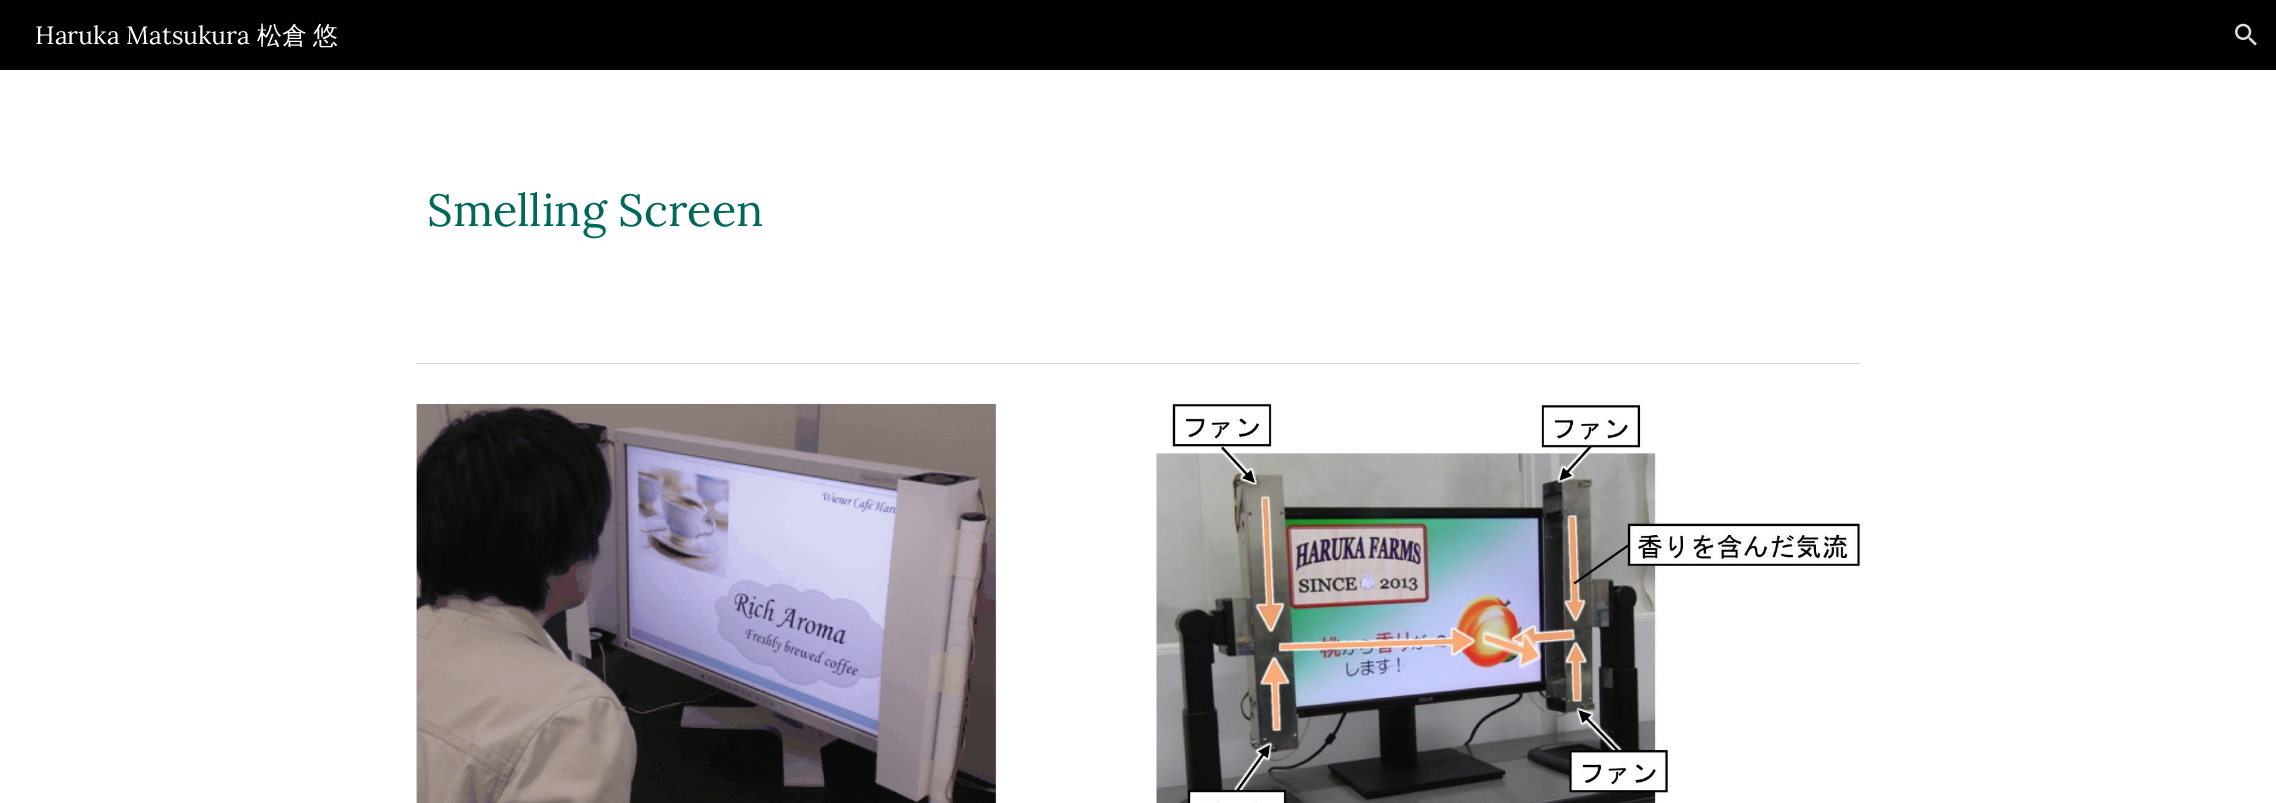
%!PS
<< /PageSize [2276 803] >> setpagedevice
/C { dup -16 bitshift 255 div exch dup -8 bitshift 255 and 255 div exch 255 and 255 div setrgbcolor } def
/F { [ exch dup neg 0 0 3 -1 roll 0 0 ] selectfont } def
/T { moveto show } def
/R { rectfill } def
/I { 5 dict begin { /h /w /y /x /name } { exch def } forall
  gsave x y translate w h scale
  w h 8 [w 0 0 h 0 0] name (r) file false 3 colorimage grestore end } def
0 803 translate 1 -1 scale
4 setmiterlimit
16#FFFFFF C
0 0 2276 803 R
16#000000 C
0 0 2276 70 R
/Lora-Regular 25 F
16#FFFFFF C
(Haruka Matsukura) 35 44 T
/WenQuanYiZenHei-Medium 25 F
(松倉) 257 44 T
(悠) 313 44 T
(1.rgb) 2235 23 22 23 I
/Lora-Regular 45 F
16#00685B C
(Smelling Screen) 427 226 T
16#D9D9D9 C
416 363 1444 1 R
(2.rgb) 416 403 581 400 I
(3.rgb) 1156 403 704 400 I
showpage
